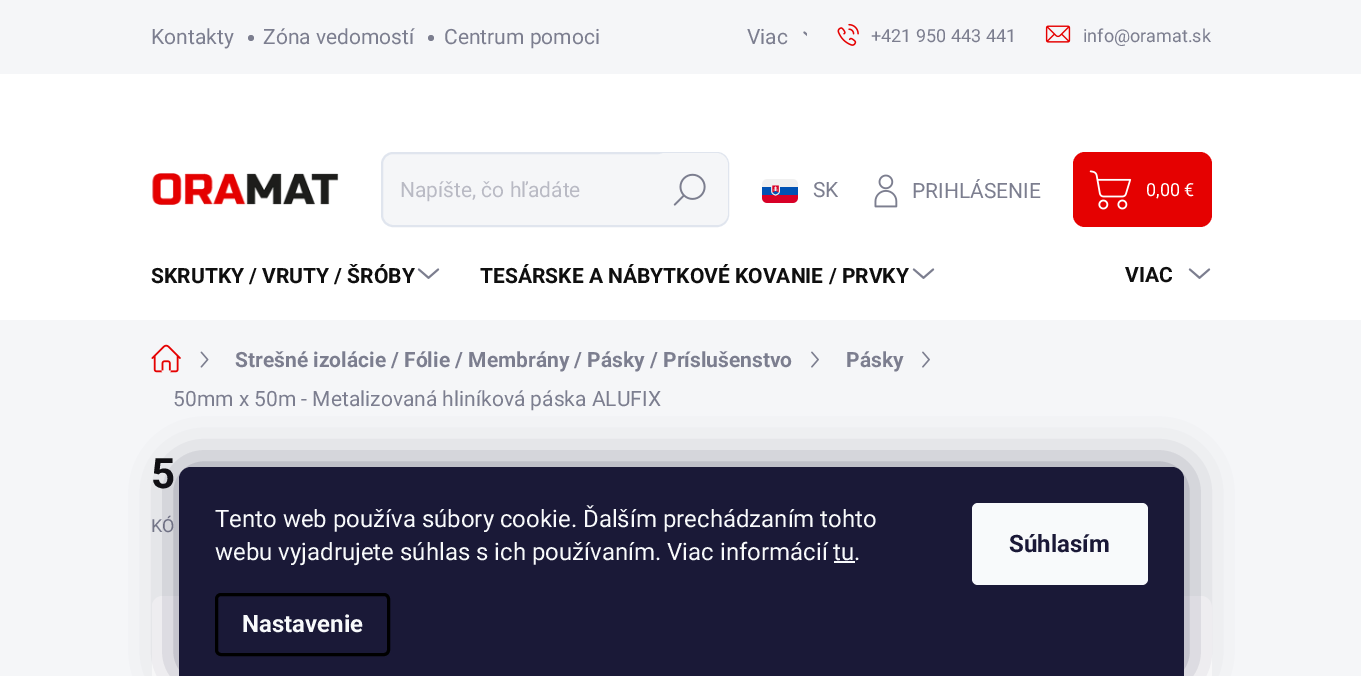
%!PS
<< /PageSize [1361 676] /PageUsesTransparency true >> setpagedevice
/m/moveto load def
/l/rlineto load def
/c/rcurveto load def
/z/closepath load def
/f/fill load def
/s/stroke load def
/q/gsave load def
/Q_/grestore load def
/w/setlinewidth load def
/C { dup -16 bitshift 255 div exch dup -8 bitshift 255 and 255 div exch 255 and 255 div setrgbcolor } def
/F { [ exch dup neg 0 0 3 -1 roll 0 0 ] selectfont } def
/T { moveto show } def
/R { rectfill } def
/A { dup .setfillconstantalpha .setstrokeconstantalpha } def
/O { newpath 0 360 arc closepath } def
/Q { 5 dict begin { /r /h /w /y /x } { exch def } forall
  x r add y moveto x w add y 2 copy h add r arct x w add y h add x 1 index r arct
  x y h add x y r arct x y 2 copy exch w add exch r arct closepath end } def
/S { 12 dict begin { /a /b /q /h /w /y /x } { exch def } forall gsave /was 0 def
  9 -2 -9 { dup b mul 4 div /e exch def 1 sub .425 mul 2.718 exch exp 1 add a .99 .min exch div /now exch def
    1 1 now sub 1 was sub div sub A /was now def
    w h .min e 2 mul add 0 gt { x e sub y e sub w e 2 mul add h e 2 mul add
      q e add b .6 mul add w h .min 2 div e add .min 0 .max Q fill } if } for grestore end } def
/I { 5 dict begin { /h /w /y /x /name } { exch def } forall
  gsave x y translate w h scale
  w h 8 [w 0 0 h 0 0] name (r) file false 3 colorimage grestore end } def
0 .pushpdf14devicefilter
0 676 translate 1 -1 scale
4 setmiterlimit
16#F5F6F8 C
0 0 1361 676 R
/Roboto-Regular 21 F
16#7C7E8F C
(Kontakty) 151 44 T
251 38 3 O f
(Zóna vedomostí) 263 44 T
431 38 3 O f
(Centrum pomoci) 444 44 T
(Viac) 747 44 T
(1.rgb) 803 31 4 6 I
(2.rgb) 837 23 22 23 I
/Roboto-Regular 18 F
(+421 950 443 441) 871 42 T
(3.rgb) 1045 25 26 18 I
(info@oramat.sk) 1083 42 T
16#FFFFFF C
0 74 1361 246 R
(4.rgb) 152 173 187 32 I
16#F5F6F8 C
382 153 346 73 11 Q q f Q_
16#E0E5EE C
2 w
s
/Roboto-Regular 21 F
16#B9BAC4 C
(Napíšte, čo hľadáte) 400 197 T
16#F5F6F8 C
653 153 75 72 12 Q f
(5.rgb) 673 173 33 33 I
(6.rgb) 762 179 36 24 I
16#7C7E8F C
(SK) 813 197 T
(7.rgb) 874 174 24 34 I
(PRIHLÁSENIE) 912 198 T
16#E50101 C
1073 152 139 75 12 Q f
(8.rgb) 1089 170 43 40 I
/Roboto-Regular 18 F
16#FFFFFF C
(0,00 €) 1146 196 T
/Roboto-Bold 21 F
16#0F0F0F C
(SKRUTKY / VRUTY / ŠRÓBY) 151 283 T
(9.rgb) 417 268 23 11 I
(TESÁRSKE A NÁBYTKOVÉ KOVANIE / PRVKY) 480 283 T
(9.rgb) 912 268 23 11 I
(VIAC) 1125 282 T
(9.rgb) 1188 268 23 11 I
(10.rgb) 151 344 30 29 I
(11.rgb) 200 351 9 17 I
16#7C7E8F C
(Strešné izolácie / Fólie / Membrány / Pásky / Príslušenstvo) 235 367 T
(12.rgb) 811 351 8 17 I
(Pásky) 846 367 T
(12.rgb) 922 351 8 17 I
/Roboto-Regular 21 F
(50mm x 50m - Metalizovaná hliníková páska ALUFIX) 173 406 T
/Roboto-Bold 42 F
16#0F0F0F C
(5) 151 488 T
/Roboto-Regular 18 F
16#7C7E8F C
(KÓ) 151 532 T
(13.rgb) 152 596 1060 80 I
16#1B1939 C
179 467 1005 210 12 22.5 .5 S
16#1A1937 C
191 467 m 981 0 l 6.5 0 12 5.5 12 12 c 0 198 l -1005 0 l 0 -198 l 0 -6.5 5.5 -12 12 -12 c z f
/Roboto-Regular 24 F
16#F8FAFB C
(Tento web používa súbory cookie. Ďalším prechádzaním tohto) 215 527 T
(webu vyjadrujete súhlas s ich používaním. Viac informácií) 215 560 T
(tu.) 833 560 T
834 561 21 2 R
16#000000 C
3 w
216.5 594.5 172 60 4.5 Q s
/Roboto-Bold 24 F
16#F8FAFB C
(Nastavenie) 242 632 T
972 503 176 82 6 Q f
16#1A1937 C
(Súhlasím) 1009 552 T
.poppdf14devicefilter showpage
